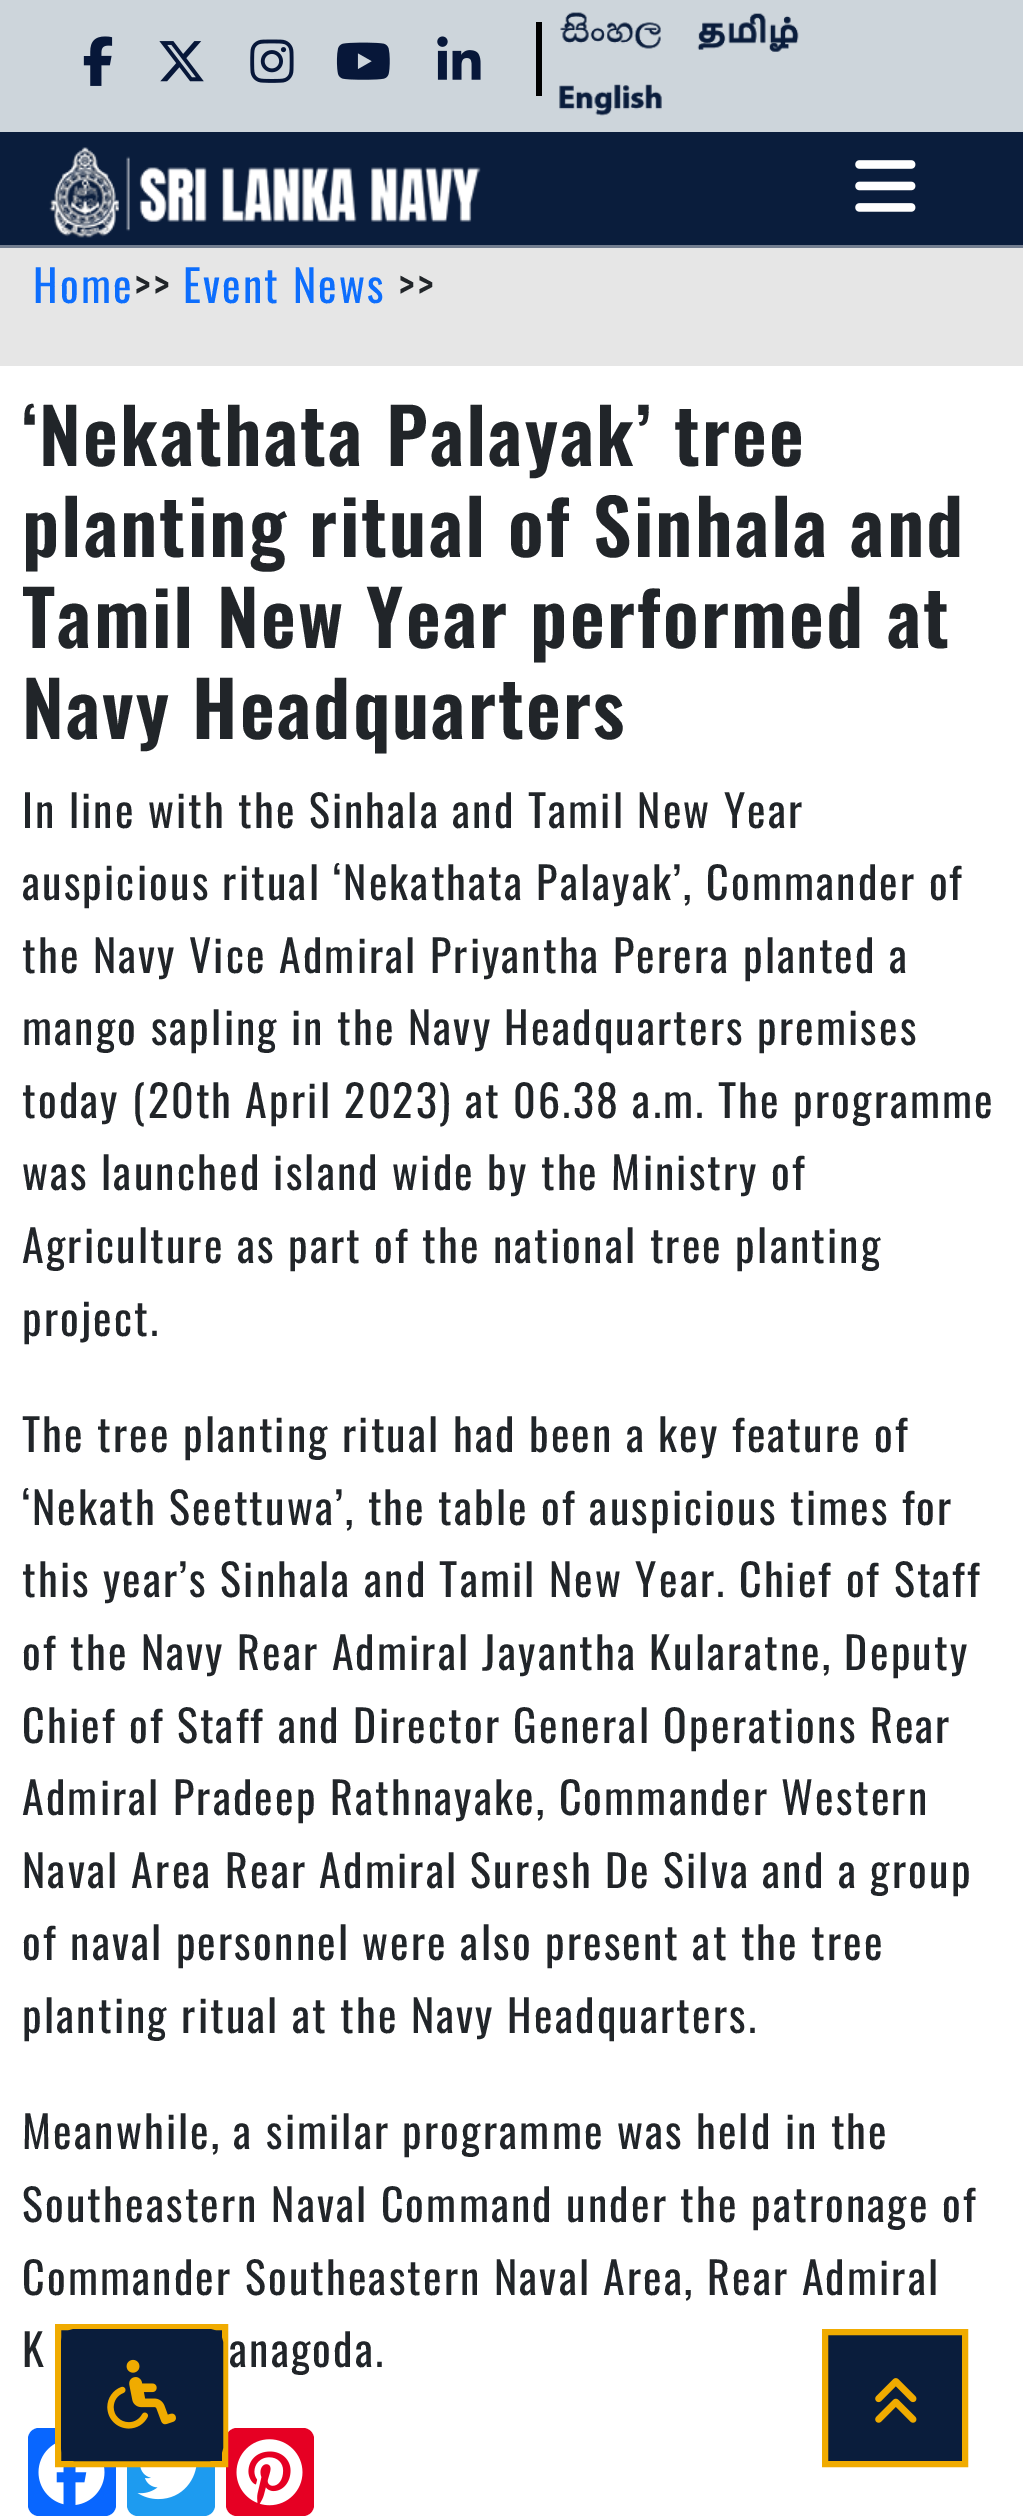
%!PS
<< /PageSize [1023 2520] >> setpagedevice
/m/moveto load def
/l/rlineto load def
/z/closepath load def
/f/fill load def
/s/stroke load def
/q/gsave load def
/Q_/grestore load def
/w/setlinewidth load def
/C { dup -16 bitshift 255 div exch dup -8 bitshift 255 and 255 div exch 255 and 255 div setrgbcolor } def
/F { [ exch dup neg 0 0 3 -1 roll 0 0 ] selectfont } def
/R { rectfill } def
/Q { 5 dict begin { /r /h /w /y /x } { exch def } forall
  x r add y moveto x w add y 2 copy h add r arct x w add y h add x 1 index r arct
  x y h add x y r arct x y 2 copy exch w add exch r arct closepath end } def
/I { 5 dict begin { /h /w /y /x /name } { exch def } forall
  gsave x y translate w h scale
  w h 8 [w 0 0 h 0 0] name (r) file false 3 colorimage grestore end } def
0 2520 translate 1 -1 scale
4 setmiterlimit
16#FFFFFF C
0 0 1023 2520 R
16#CDD5DB C
0 0 1023 132 R
16#000000 C
536 22 6 74 R
(1.rgb) 83 36 30 50 I
(2.rgb) 159 41 45 41 I
(3.rgb) 250 39 44 44 I
(4.rgb) 336 42 54 38 I
(5.rgb) 437 36 44 44 I
(6.rgb) 560 12 101 37 I
(7.rgb) 697 13 102 39 I
(8.rgb) 559 84 103 32 I
16#0A1D3C C
0 132 1023 113 R
16#737E90 C
0 245 1023 3 R
(9.rgb) 49 147 432 91 I
(10.rgb) 855 160 61 52 I
16#E6E6E6 C
0 248 1023 118 R
/Oswald-Regular 44 F
16#0D6EFD C
33 303 m 2.2 0 (Home) ashow
16#212529 C
134 303 m 2.2 0 (>>) ashow
16#0D6EFD C
183 303 m 2.2 0 (Event News) ashow
16#212529 C
398 303 m 2.2 0 (>>) ashow
/Oswald-SemiBold 75.8 F
22 466 m 2.2 0 (‘Nekathata Palayak’ tree) ashow
22 557 m 2.2 0 (planting ritual of Sinhala and) ashow
22 648 m 2.2 0 (Tamil New Year performed at) ashow
22 739 m 2.2 0 (Navy Headquarters) ashow
/Oswald-Regular 44 F
22 828 m 2.2 0 (In line with the Sinhala and Tamil New Year) ashow
22 900 m 2.2 0 (auspicious ritual ‘Nekathata Palayak’, Commander of) ashow
22 973 m 2.2 0 (the Navy Vice Admiral Priyantha Perera planted a) ashow
22 1045 m 2.2 0 (mango sapling in the Navy Headquarters premises) ashow
22 1118 m 2.2 0 (today \(20th April 2023\) at 06.38 a.m. The programme) ashow
22 1190 m 2.2 0 (was launched island wide by the Ministry of) ashow
22 1263 m 2.2 0 (Agriculture as part of the national tree planting) ashow
22 1336 m 2.2 0 (project.) ashow
22 1452 m 2.2 0 (The tree planting ritual had been a key feature of) ashow
22 1525 m 2.2 0 (‘Nekath Seettuwa’, the table of auspicious times for) ashow
22 1597 m 2.2 0 (this year’s Sinhala and Tamil New Year. Chief of Staff) ashow
22 1670 m 2.2 0 (of the Navy Rear Admiral Jayantha Kularatne, Deputy) ashow
22 1743 m 2.2 0 (Chief of Staff and Director General Operations Rear) ashow
22 1815 m 2.2 0 (Admiral Pradeep Rathnayake, Commander Western) ashow
22 1888 m 2.2 0 (Naval Area Rear Admiral Suresh De Silva and a group) ashow
22 1960 m 2.2 0 (of naval personnel were also present at the tree) ashow
22 2033 m 2.2 0 (planting ritual at the Navy Headquarters.) ashow
22 2149 m 2.2 0 (Meanwhile, a similar programme was held in the) ashow
22 2222 m 2.2 0 (Southeastern Naval Command under the patronage of) ashow
22 2295 m 2.2 0 (Commander Southeastern Naval Area, Rear Admiral) ashow
22 2367 m 2.2 0 (K) ashow
229 2367 m 2.2 0 (anagoda.) ashow
16#0866FF C
28 2428 88 88 11 Q f
(11.rgb) 38 2443 67 62 I
16#1D9BF0 C
127 2428 88 88 11 Q f
(12.rgb) 137 2467 60 33 I
16#E60023 C
226 2428 88 88 11 Q f
(13.rgb) 236 2439 67 67 I
16#0A1D3C C
58 2327 m 167 0 l 0 137 l -167 0 l z q f Q_
16#F0AB00 C
6 w
s
16#0A1D3C C
62.5 2330.5 159 129 12.5 Q q f Q_
3 w
s
(14.rgb) 107 2359 69 70 I
825 2332 m 140 0 l 0 132 l -140 0 l z q f Q_
16#F0AB00 C
6 w
s
(15.rgb) 875 2378 42 45 I
showpage
